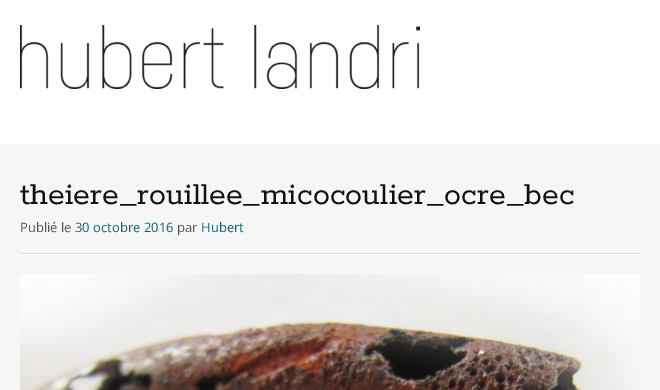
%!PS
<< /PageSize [660 390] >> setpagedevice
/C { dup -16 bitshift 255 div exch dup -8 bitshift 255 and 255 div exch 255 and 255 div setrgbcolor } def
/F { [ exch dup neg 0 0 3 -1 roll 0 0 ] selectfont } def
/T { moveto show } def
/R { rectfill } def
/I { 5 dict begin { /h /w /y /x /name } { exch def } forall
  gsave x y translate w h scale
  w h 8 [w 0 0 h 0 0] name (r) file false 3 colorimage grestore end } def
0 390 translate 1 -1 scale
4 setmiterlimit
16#F6F6F6 C
0 0 660 390 R
16#FFFFFF C
0 0 660 144 R
(1.rgb) 20 25 400 64 I
20 254 620 1 R
16#DDDDDD C
20 253 620 1 R
/Rokkitt-Regular 34 F
16#111111 C
(theiere_rouillee_micocoulier_ocre_bec) 20 204 T
/OpenSans-Regular 13 F
16#555555 C
(Publié le) 20 232 T
16#106177 C
(30 octobre 2016) 75 232 T
16#555555 C
(par) 177 232 T
16#106177 C
(Hubert) 201 232 T
(2.rgb) 20 274 620 116 I
showpage
